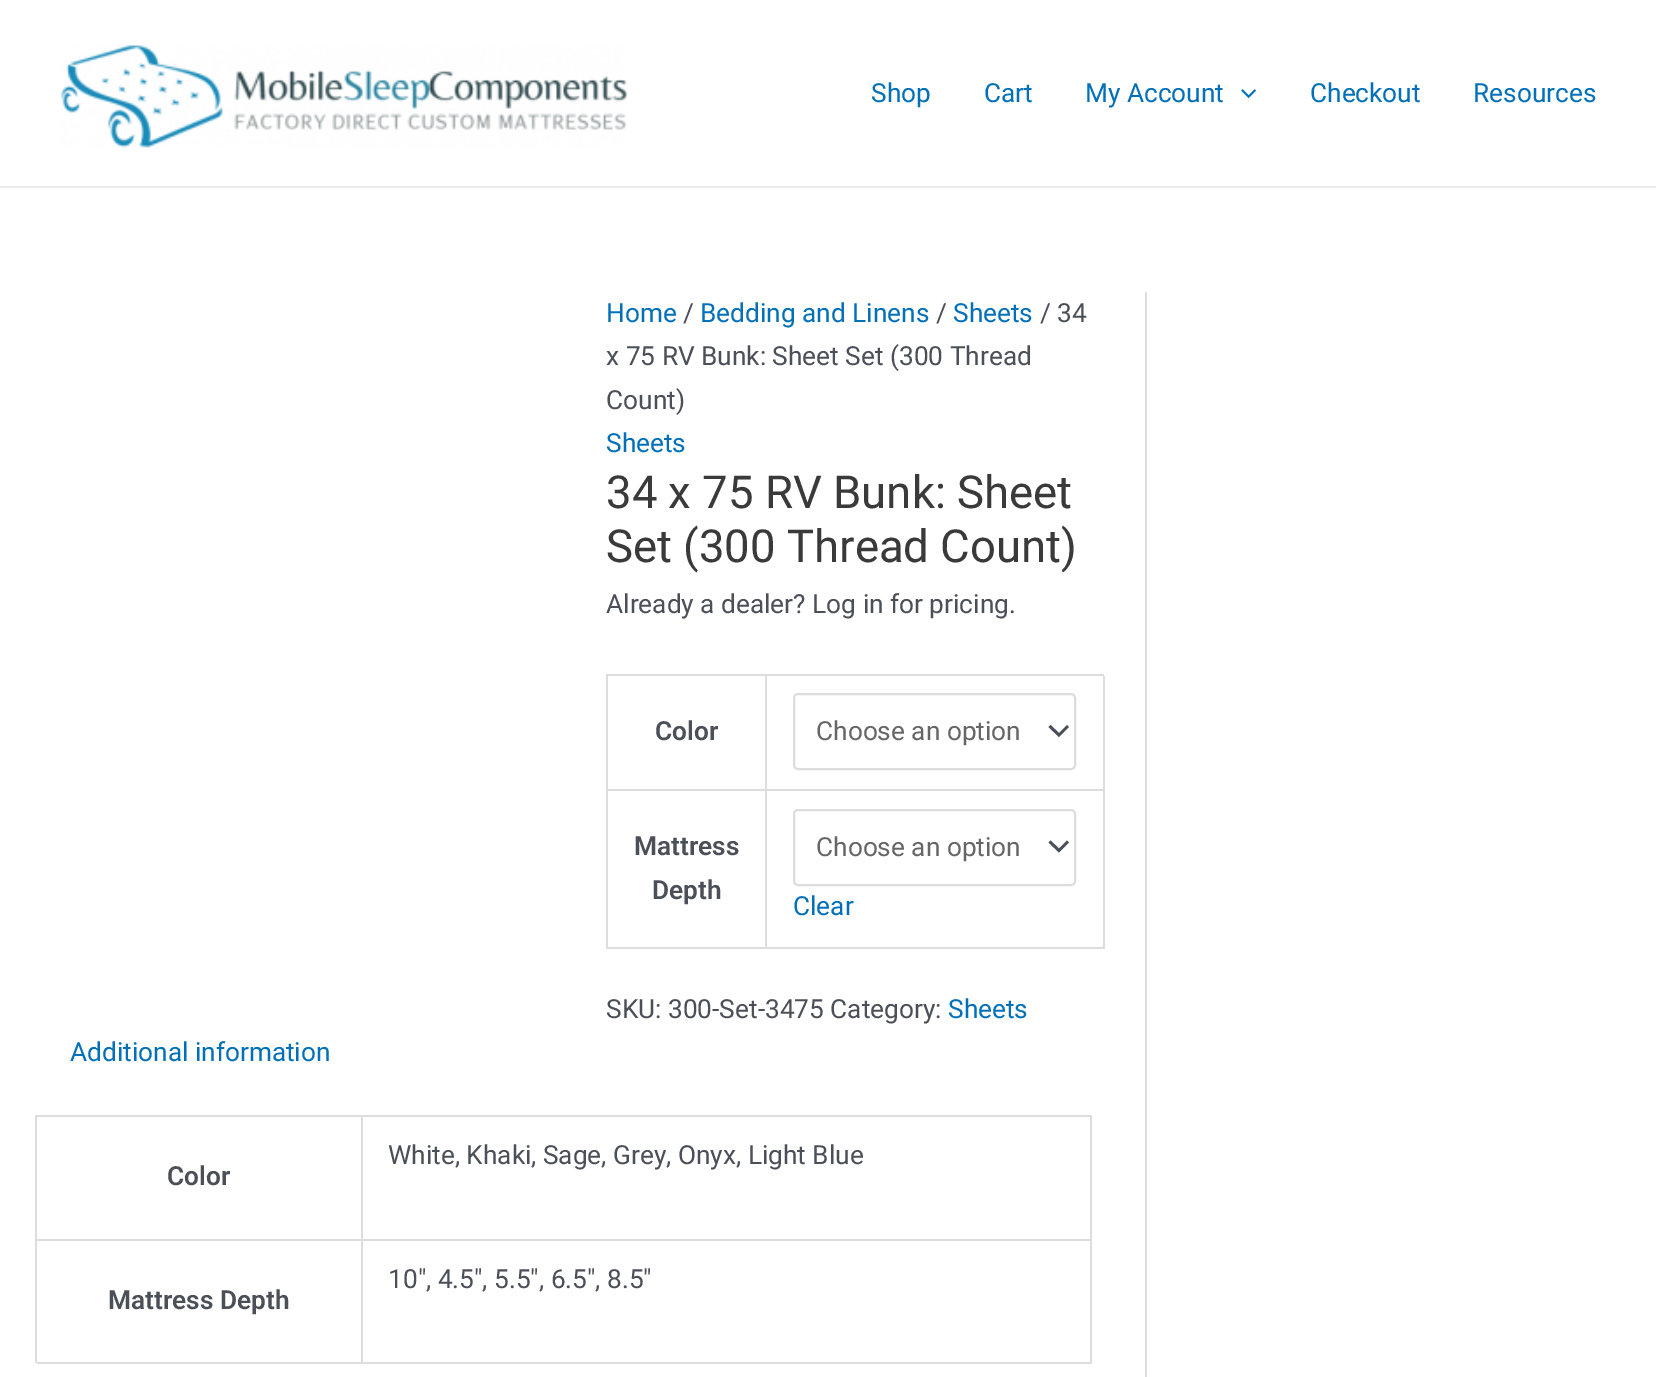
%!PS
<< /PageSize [1656 1377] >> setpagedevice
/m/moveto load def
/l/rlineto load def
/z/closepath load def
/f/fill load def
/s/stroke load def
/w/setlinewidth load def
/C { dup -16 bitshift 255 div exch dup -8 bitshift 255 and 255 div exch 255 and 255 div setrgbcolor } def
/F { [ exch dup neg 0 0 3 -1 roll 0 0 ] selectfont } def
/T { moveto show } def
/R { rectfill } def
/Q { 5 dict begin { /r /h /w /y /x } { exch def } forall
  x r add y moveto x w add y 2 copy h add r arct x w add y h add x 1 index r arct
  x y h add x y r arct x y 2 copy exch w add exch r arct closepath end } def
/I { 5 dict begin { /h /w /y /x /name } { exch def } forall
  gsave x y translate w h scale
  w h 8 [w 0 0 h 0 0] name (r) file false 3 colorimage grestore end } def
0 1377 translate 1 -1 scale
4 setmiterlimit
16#FFFFFF C
0 0 1656 1377 R
16#EAEAEA C
0 186 1656 2 R
(1.rgb) 60 45 567 103 I
/Roboto-Regular 26.25 F
16#0170B9 C
(Shop) 871 102 T
(Cart) 984 102 T
(My Account) 1085 102 T
(2.rgb) 1241 89 16 10 I
(Checkout) 1310 102 T
(Resources) 1473 102 T
16#DDDDDD C
1145 292 2 1085 R
16#0170B9 C
(Home) 606 322 T
16#4B4F58 C
(/) 683 322 T
16#0170B9 C
(Bedding and Linens) 700 322 T
16#4B4F58 C
(/) 936 322 T
16#0170B9 C
(Sheets) 953 322 T
16#4B4F58 C
(/ 34) 1040 322 T
(x 75 RV Bunk: Sheet Set \(300 Thread) 606 365 T
(Count\)) 606 409 T
16#0170B9 C
(Sheets) 606 452 T
/Roboto-Regular 45.5 F
16#3A3A3A C
(34 x 75 RV Bunk: Sheet) 606 508 T
(Set \(300 Thread Count\)) 606 562 T
/Roboto-Regular 26.25 F
16#4B4F58 C
(Already a dealer? Log in for pricing.) 606 613 T
16#DDDDDD C
606 674 498 2 R
606 674 2 275 R
765 676 2 273 R
607 789 160 2 R
/Roboto-SemiBold 26.25 F
16#4B4F58 C
(Color) 655 740 T
16#DDDDDD C
1103 676 2 273 R
767 789 337 2 R
16#4B4F58 C
1048.5 727 m 10.5 10 l 10 -10 l -2 -2 l -8 8 l -8.5 -8 l z f
16#DDDDDD C
2 w
794 694 281 75 4 Q s
/Roboto-Regular 26.25 F
16#666666 C
(Choose an option) 816 740 T
16#DDDDDD C
607 947 497 2 R
/Roboto-SemiBold 26.25 F
16#4B4F58 C
(Mattress) 634 855 T
(Depth) 652 899 T
1048.5 842.5 m 10.5 10 l 10 -10 l -2 -2 l -8 8 l -8.5 -8 l z f
16#DDDDDD C
794 810 281 75 4 Q s
/Roboto-Regular 26.25 F
16#666666 C
(Choose an option) 816 856 T
16#0170B9 C
(Clear) 793 915 T
16#4B4F58 C
(SKU: 300-Set-3475 Category:) 606 1018 T
16#0170B9 C
(Sheets) 948 1018 T
(Additional information) 70 1061 T
16#DDDDDD C
35 1115 1057 2 R
35 1115 2 248 R
1090 1117 2 246 R
361 1117 2 246 R
362 1239 730 2 R
16#4B4F58 C
(White, Khaki, Sage, Grey, Onyx, Light Blue) 388 1164 T
16#DDDDDD C
37 1239 325 2 R
/Roboto-SemiBold 26.25 F
16#4B4F58 C
(Color) 167 1185 T
/Roboto-Regular 26.25 F
(10", 4.5", 5.5", 6.5", 8.5") 388 1288 T
16#DDDDDD C
37 1362 1055 2 R
/Roboto-SemiBold 26.25 F
16#4B4F58 C
(Mattress Depth) 108 1309 T
showpage
